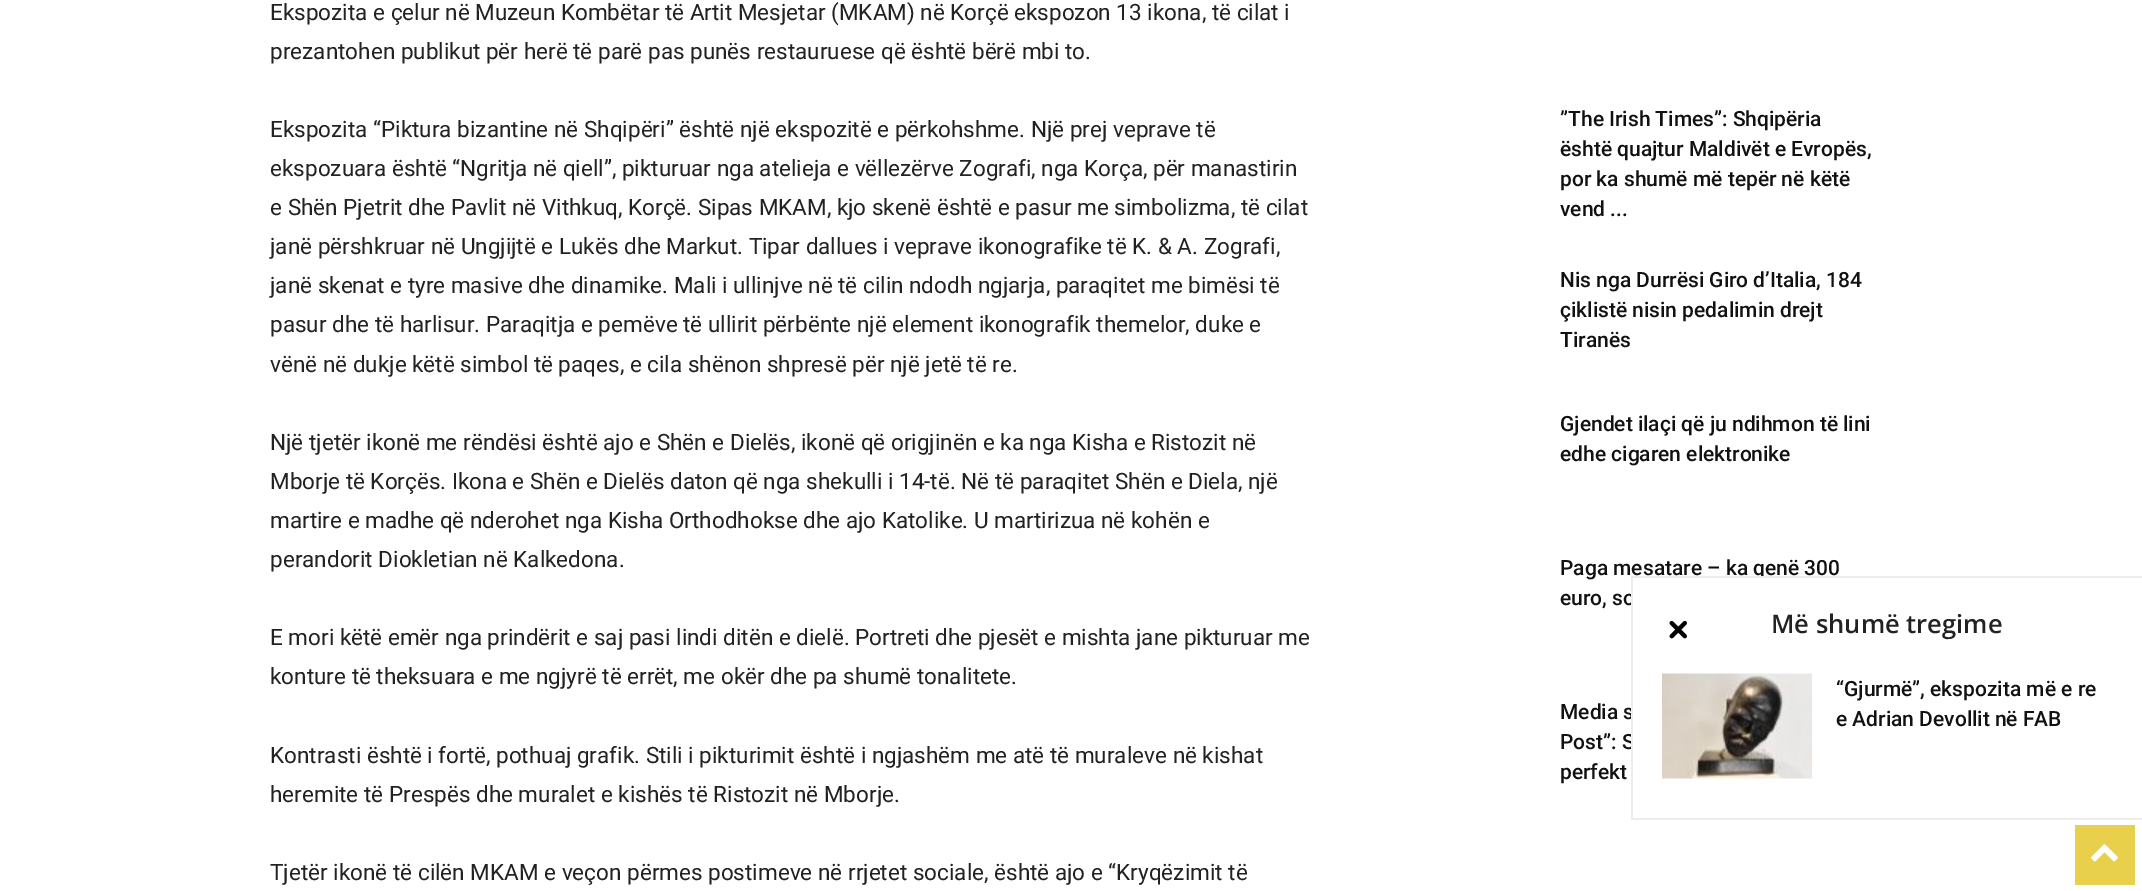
%!PS
<< /PageSize [2142 891] >> setpagedevice
/C { dup -16 bitshift 255 div exch dup -8 bitshift 255 and 255 div exch 255 and 255 div setrgbcolor } def
/F { [ exch dup neg 0 0 3 -1 roll 0 0 ] selectfont } def
/T { moveto show } def
/R { rectfill } def
/I { 5 dict begin { /h /w /y /x /name } { exch def } forall
  gsave x y translate w h scale
  w h 8 [w 0 0 h 0 0] name (r) file false 3 colorimage grestore end } def
0 891 translate 1 -1 scale
4 setmiterlimit
16#FFFFFF C
0 0 2142 891 R
/Roboto-Regular 22.5 F
16#222222 C
(Ekspozita e çelur në Muzeun Kombëtar të Artit Mesjetar \(MKAM\) në Korçë ekspozon 13 ikona, të cilat i) 270 20 T
(prezantohen publikut për herë të parë pas punës restauruese që është bërë mbi to.) 270 59 T
(Ekspozita “Piktura bizantine në Shqipëri” është një ekspozitë e përkohshme. Një prej veprave të) 270 137 T
(ekspozuara është “Ngritja në qiell”, pikturuar nga atelieja e vëllezërve Zografi, nga Korça, për manastirin) 270 176 T
(e Shën Pjetrit dhe Pavlit në Vithkuq, Korçë. Sipas MKAM, kjo skenë është e pasur me simbolizma, të cilat) 270 215 T
(janë përshkruar në Ungjijtë e Lukës dhe Markut. Tipar dallues i veprave ikonografike të K. & A. Zografi,) 270 254 T
(janë skenat e tyre masive dhe dinamike. Mali i ullinjve në të cilin ndodh ngjarja, paraqitet me bimësi të) 270 293 T
(pasur dhe të harlisur. Paraqitja e pemëve të ullirit përbënte një element ikonografik themelor, duke e) 270 332 T
(vënë në dukje këtë simbol të paqes, e cila shënon shpresë për një jetë të re.) 270 372 T
(Një tjetër ikonë me rëndësi është ajo e Shën e Dielës, ikonë që origjinën e ka nga Kisha e Ristozit në) 270 450 T
(Mborje të Korçës. Ikona e Shën e Dielës daton që nga shekulli i 14-të. Në të paraqitet Shën e Diela, një) 270 489 T
(martire e madhe që nderohet nga Kisha Orthodhokse dhe ajo Katolike. U martirizua në kohën e) 270 528 T
(perandorit Diokletian në Kalkedona.) 270 567 T
(E mori këtë emër nga prindërit e saj pasi lindi ditën e dielë. Portreti dhe pjesët e mishta jane pikturuar me) 270 645 T
(konture të theksuara e me ngjyrë të errët, me okër dhe pa shumë tonalitete.) 270 684 T
(Kontrasti është i fortë, pothuaj grafik. Stili i pikturimit është i ngjashëm me atë të muraleve në kishat) 270 763 T
(heremite të Prespës dhe muralet e kishës të Ristozit në Mborje.) 270 802 T
(Tjetër ikonë të cilën MKAM e veçon përmes postimeve në rrjetet sociale, është ajo e “Kryqëzimit të) 270 880 T
/Roboto-Medium 21 F
16#111111 C
(”The Irish Times”: Shqipëria) 1560 126 T
(është quajtur Maldivët e Evropës,) 1560 156 T
(por ka shumë më tepër në këtë) 1560 186 T
(vend ...) 1560 216 T
(Nis nga Durrësi Giro d’Italia, 184) 1560 287 T
(çiklistë nisin pedalimin drejt) 1560 317 T
(Tiranës) 1560 347 T
(Gjendet ilaçi që ju ndihmon të lini) 1560 431 T
(edhe cigaren elektronike) 1560 461 T
(Paga mesatare – ka qenë 300) 1560 575 T
(euro, so) 1560 605 T
(Media s) 1560 719 T
(Post”: S) 1560 749 T
(perfekt) 1560 779 T
16#FFFFFF C
1633 578 131 170 R
16#EDEDED C
1631 576 511 2 R
1631 818 511 2 R
1631 576 2 243 R
(1.rgb) 1669 620 18 19 I
/OpenSans-SemiBold 25.5 F
16#222222 C
(Më shumë tregime) 1771 633 T
(2.rgb) 1662 673 150 106 I
/Roboto-Medium 21 F
16#111111 C
(“Gjurmë”, ekspozita më e re) 1836 696 T
(e Adrian Devollit në FAB) 1836 726 T
16#E8D04C C
2075 825 60 60 R
(3.rgb) 2091 844 27 18 I
showpage
